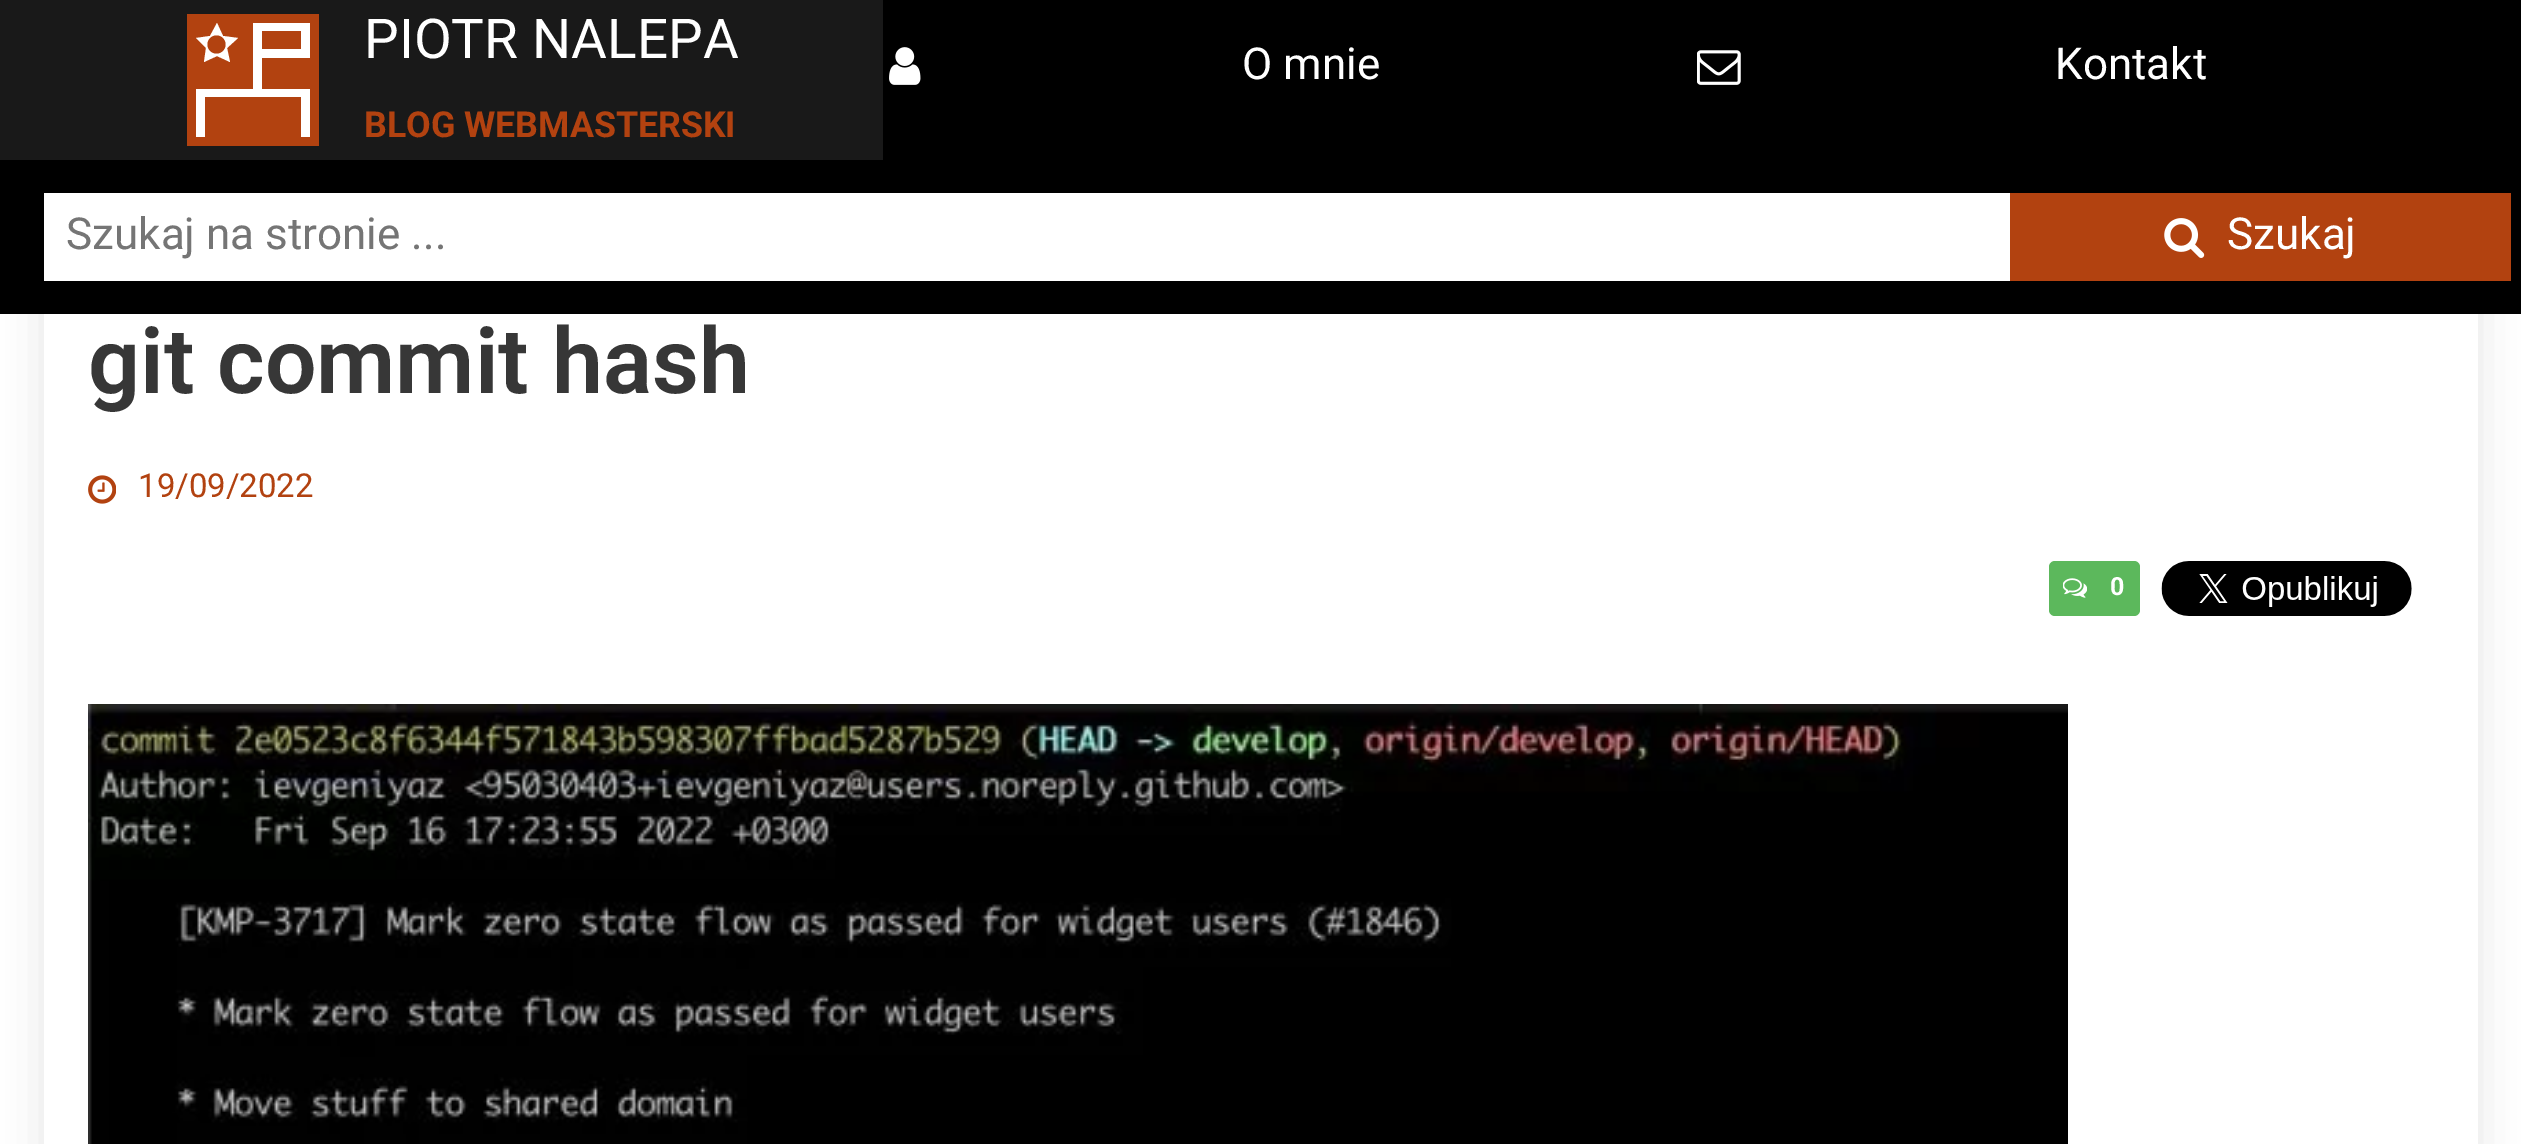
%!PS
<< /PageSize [2521 1144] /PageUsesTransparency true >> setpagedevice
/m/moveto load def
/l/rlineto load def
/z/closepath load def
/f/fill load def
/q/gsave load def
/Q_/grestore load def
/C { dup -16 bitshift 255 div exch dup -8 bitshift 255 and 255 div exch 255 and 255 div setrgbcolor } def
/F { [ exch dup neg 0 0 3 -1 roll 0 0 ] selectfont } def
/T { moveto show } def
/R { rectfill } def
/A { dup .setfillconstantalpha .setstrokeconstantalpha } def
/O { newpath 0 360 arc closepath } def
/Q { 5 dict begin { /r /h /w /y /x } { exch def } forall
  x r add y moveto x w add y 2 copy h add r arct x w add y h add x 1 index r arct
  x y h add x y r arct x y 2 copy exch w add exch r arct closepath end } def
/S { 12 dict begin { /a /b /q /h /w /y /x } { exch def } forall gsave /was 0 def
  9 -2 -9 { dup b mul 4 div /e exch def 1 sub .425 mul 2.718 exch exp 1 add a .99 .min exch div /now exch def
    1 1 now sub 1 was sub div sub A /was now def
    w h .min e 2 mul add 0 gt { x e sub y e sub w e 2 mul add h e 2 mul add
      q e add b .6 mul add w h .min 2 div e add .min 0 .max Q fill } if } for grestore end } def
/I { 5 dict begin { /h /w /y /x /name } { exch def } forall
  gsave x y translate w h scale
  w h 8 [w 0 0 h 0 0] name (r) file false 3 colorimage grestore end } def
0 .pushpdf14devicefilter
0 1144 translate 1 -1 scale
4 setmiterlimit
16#FFFFFF C
0 0 2521 1144 R
q
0 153 m 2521 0 l 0 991 l -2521 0 l z 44 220 m 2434 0 l 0 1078 l -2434 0 l z eoclip newpath
16#000000 C
44 220 2434 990 0 22 .1 S
Q_
16#000000 C
0 0 2521 314 R
16#191919 C
0 0 883 160 R
16#B24210 C
187 14 132 132 R
16#FFFFFF C
196 89 114 48 R
16#B24210 C
205 97 96 40 R
16#FFFFFF C
253 89 m 0 -66 l 57 0 l 0 35 l -48 0 l 0 31 l z eofill
16#B24210 C
262 31 39 18 R
16#FFFFFF C
217 56 m 13 6 l -3 -14 l 11 -10 l -15 -2 l -6 -13 l -7 13 l -14 2 l 10 10 l -2 14 l z f
16#B24210 C
216.5 44.5 9 O f
/Roboto-Regular 55 F
16#FFFFFF C
(PIOTR NALEPA) 364 58 T
/Roboto-Bold 35.75 F
16#B24210 C
(BLOG WEBMASTERSKI) 364 137 T
(1.rgb) 889 47 32 38 I
/Roboto-Regular 44 F
16#FFFFFF C
(O mnie) 1242 79 T
(2.rgb) 1697 50 44 35 I
(Kontakt) 2055 79 T
44 193 1966 88 R
16#757575 C
(Szukaj na stronie ...) 66 249 T
16#B24210 C
2010 193 501 88 R
(3.rgb) 2164 218 41 40 I
16#FFFFFF C
(Szukaj) 2227 249 T
/Roboto-SemiBold 91.25 F
16#373737 C
(git commit hash) 88 393 T
(4.rgb) 88 475 28 29 I
/Roboto-Regular 33 F
16#B24210 C
(19/09/2022) 138 497 T
16#5CB85C C
2049 561 91 55 6 Q f
(5.rgb) 2063 578 24 20 I
/Roboto-Bold 25 F
16#FFFFFF C
(0) 2110 595 T
(6.rgb) 2161 561 251 55 I
(7.rgb) 88 704 1980 440 I
.poppdf14devicefilter showpage
